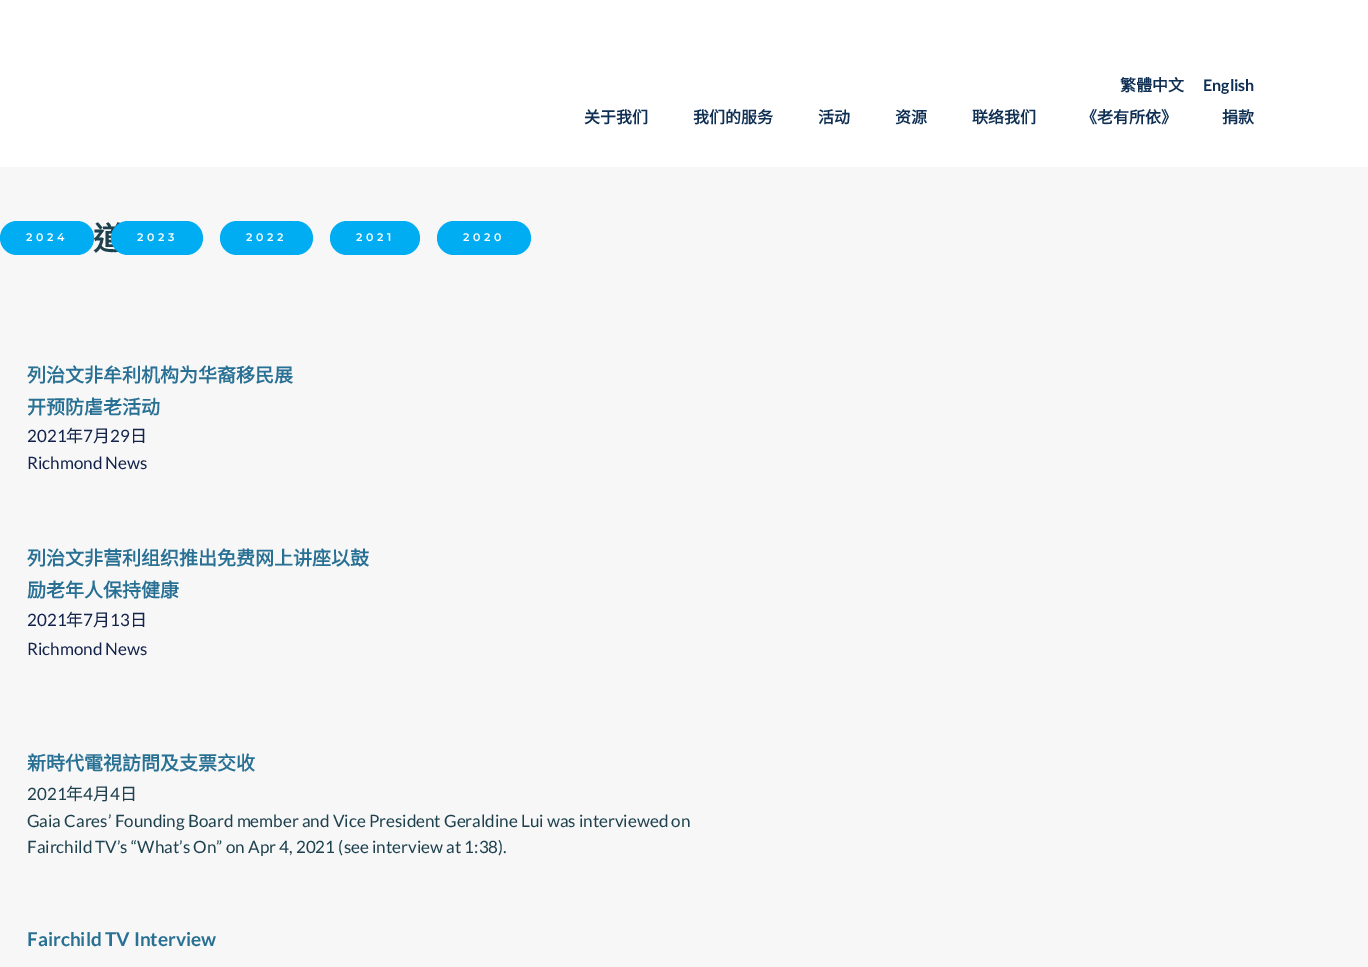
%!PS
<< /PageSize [1368 967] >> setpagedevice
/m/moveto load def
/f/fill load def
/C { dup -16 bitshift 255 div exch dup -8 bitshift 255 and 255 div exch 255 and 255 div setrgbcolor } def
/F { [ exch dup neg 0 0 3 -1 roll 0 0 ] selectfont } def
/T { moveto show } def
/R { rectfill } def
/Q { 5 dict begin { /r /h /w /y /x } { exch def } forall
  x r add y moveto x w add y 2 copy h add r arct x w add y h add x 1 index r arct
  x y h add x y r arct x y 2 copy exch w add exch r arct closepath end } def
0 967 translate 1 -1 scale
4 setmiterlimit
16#F7F7F7 C
0 0 1368 967 R
16#FFFFFF C
0 0 1368 167 R
/NotoSansCJKHK-Bold 16 F
16#0E2F53 C
(繁體中文) 1120 91 T
/Lato-Bold 16 F
(English) 1203 91 T
/NotoSansCJKHK-Bold 16 F
(关于我们) 584 123 T
(我们的服务) 693 123 T
(活动) 818 123 T
(资源) 895 123 T
(联络我们) 972 123 T
(《老有所依》) 1081 123 T
(捐款) 1222 123 T
/NotoSansCJKHK-Bold 32 F
16#1E414E C
93 250 m -1 0 (道) ashow
16#00ADF2 C
0 221 94 34 17 Q f
/Montserrat-Thin 11 F
16#FFFFFF C
26 241 m 3.5 0 (2024) ashow
16#00ADF2 C
111 221 92 34 17 Q f
16#FFFFFF C
137 241 m 3.5 0 (2023) ashow
16#00ADF2 C
220 221 93 34 17 Q f
16#FFFFFF C
246 241 m 3.5 0 (2022) ashow
16#00ADF2 C
330 221 90 34 17 Q f
16#FFFFFF C
356 241 m 3.5 0 (2021) ashow
16#00ADF2 C
437 221 94 34 17 Q f
16#FFFFFF C
463 241 m 3.5 0 (2020) ashow
/NotoSansCJKHK-Bold 19 F
16#287094 C
(列治文非牟利机构为华裔移民展) 27 382 T
(开预防虐老活动) 27 414 T
/Lato-Regular 17 F
16#13234B C
(2021) 27 442 T
/NotoSansCJKHK-Regular 17 F
(年) 66 442 T
/Lato-Regular 17 F
(7) 83 442 T
/NotoSansCJKHK-Regular 17 F
(月) 93 442 T
/Lato-Regular 17 F
(29) 110 442 T
/NotoSansCJKHK-Regular 17 F
(日) 130 442 T
/Lato-Regular 17 F
(Richmond News) 27 469 T
/NotoSansCJKHK-Bold 19 F
16#287094 C
(列治文非营利组织推出免费网上讲座以鼓) 27 565 T
(励老年人保持健康) 27 597 T
/Lato-Regular 17 F
16#13234B C
(2021) 27 626 T
/NotoSansCJKHK-Regular 17 F
(年) 66 626 T
/Lato-Regular 17 F
(7) 83 626 T
/NotoSansCJKHK-Regular 17 F
(月) 93 626 T
/Lato-Regular 17 F
(13) 110 626 T
/NotoSansCJKHK-Regular 17 F
(日) 130 626 T
/Lato-Regular 17 F
(Richmond News) 27 655 T
/NotoSansCJKHK-Bold 19 F
16#287094 C
(新時代電視訪問及支票交收) 27 770 T
/Lato-Regular 17 F
16#1E414E C
(2021) 27 800 T
/NotoSansCJKHK-Regular 17 F
(年) 66 800 T
/Lato-Regular 17 F
(4) 83 800 T
/NotoSansCJKHK-Regular 17 F
(月) 93 800 T
/Lato-Regular 17 F
(4) 110 800 T
/NotoSansCJKHK-Regular 17 F
(日) 120 800 T
/Lato-Regular 17 F
(Gaia Cares’ Founding Board member and Vice President Geraldine Lui was interviewed on) 27 827 T
(Fairchild TV’s “What’s On” on Apr 4, 2021 \(see interview at 1:38\).) 27 853 T
/Lato-Bold 19 F
16#287094 C
(Fairchild TV Interview) 27 946 T
showpage
